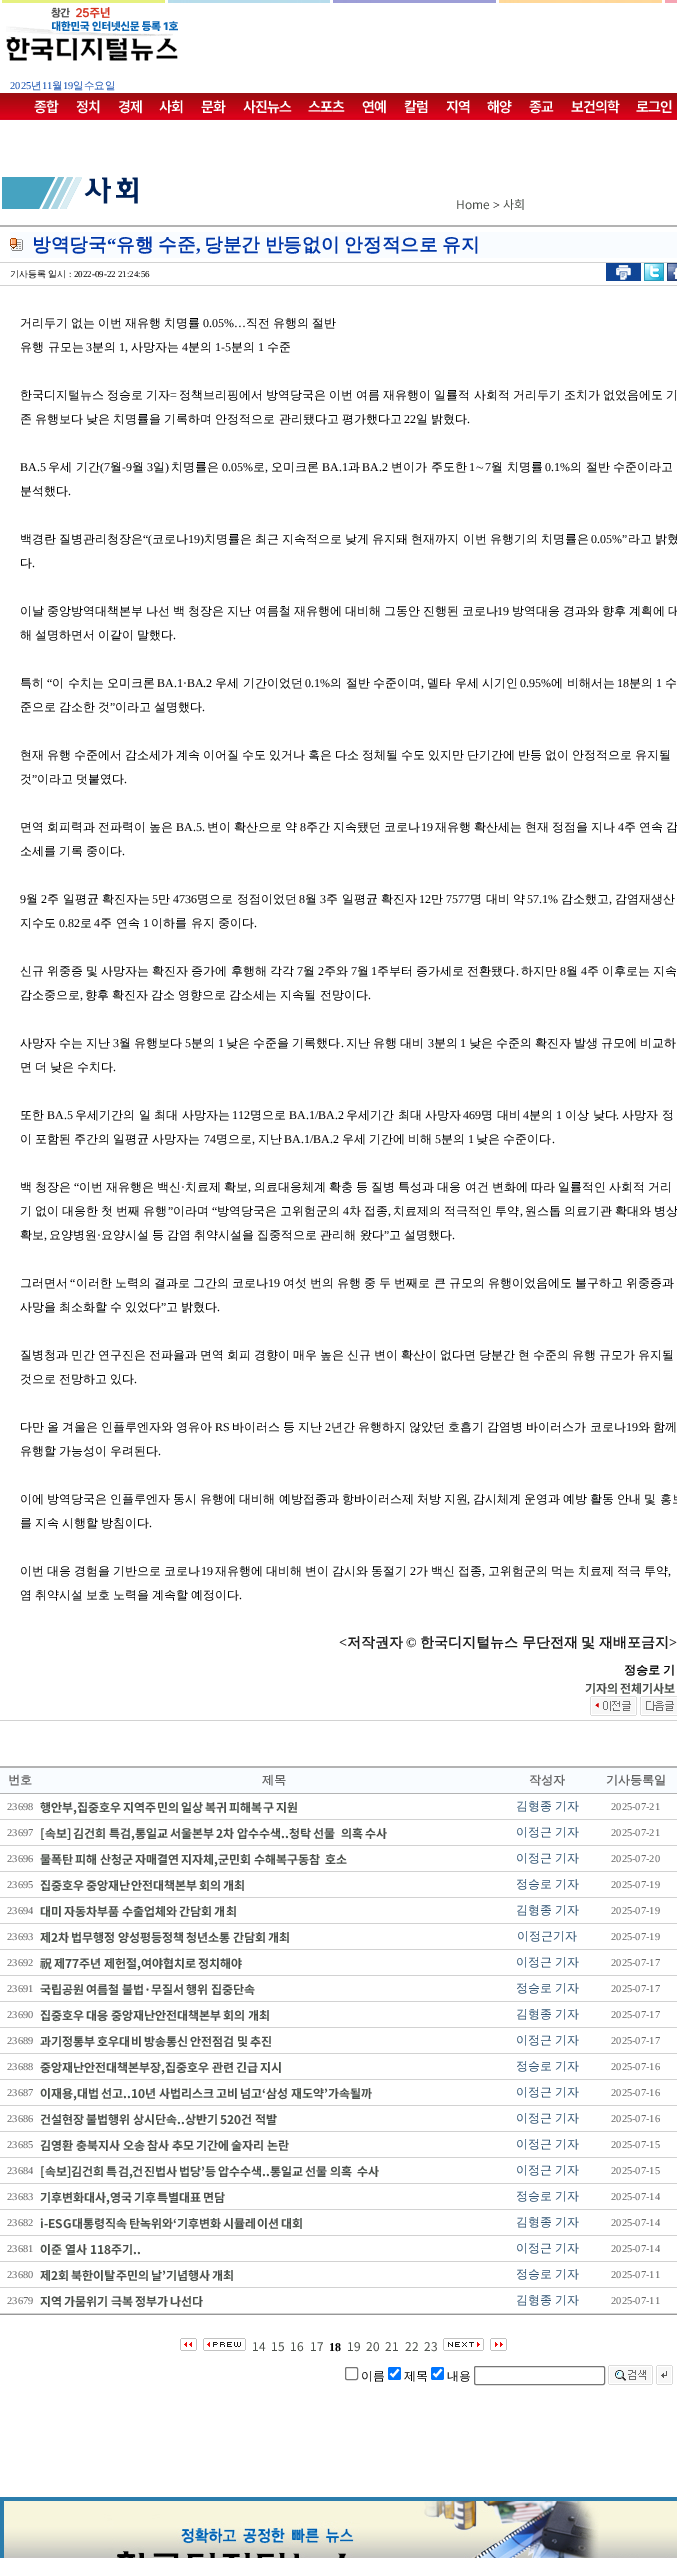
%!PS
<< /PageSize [677 2558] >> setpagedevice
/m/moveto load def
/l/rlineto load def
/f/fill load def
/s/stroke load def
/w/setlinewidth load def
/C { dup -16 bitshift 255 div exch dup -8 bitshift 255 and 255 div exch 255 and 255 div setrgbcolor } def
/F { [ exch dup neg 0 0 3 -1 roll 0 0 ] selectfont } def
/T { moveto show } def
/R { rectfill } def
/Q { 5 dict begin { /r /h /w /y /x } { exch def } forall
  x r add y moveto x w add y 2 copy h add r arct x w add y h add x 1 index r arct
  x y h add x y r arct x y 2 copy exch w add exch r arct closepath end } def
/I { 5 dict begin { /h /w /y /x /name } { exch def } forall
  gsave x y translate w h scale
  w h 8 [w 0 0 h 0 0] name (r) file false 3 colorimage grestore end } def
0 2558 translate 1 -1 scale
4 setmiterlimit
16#FFFFFF C
0 0 677 2558 R
(1.rgb) 2 0 675 3 I
(2.rgb) 6 7 172 54 I
/LiberationSerif-Regular 10.5 F
16#134EB0 C
(2025) 10 89 T
/WenQuanYiZenHei-Medium 10.5 F
(년) 31 89 T
/LiberationSerif-Regular 10.5 F
(11) 42 89 T
/WenQuanYiZenHei-Medium 10.5 F
(월) 52 89 T
/LiberationSerif-Regular 10.5 F
(19) 63 89 T
/WenQuanYiZenHei-Medium 10.5 F
(일수요일) 73 89 T
(3.rgb) 0 93 677 27 I
/NotoSansKR-SemiBold 14 F
16#FFFFFF C
34 112 m -1 0 (종합) ashow
76 112 m -1 0 (정치) ashow
118 112 m -1 0 (경제) ashow
159 112 m -1 0 (사회) ashow
201 112 m -1 0 (문화) ashow
243 112 m -1 0 (사진뉴스) ashow
308 112 m -1 0 (스포츠) ashow
362 112 m -1 0 (연예) ashow
404 112 m -1 0 (칼럼) ashow
446 112 m -1 0 (지역) ashow
487 112 m -1 0 (해양) ashow
529 112 m -1 0 (종교) ashow
571 112 m -1 0 (보건의학) ashow
636 112 m -1 0 (로그인) ashow
(4.rgb) 2 177 136 32 I
/NotoSansKR-Regular 12 F
16#4B504B C
(Home) 456 209 T
/LiberationSerif-Regular 12 F
16#000000 C
(>) 493 209 T
/NotoSansKR-Regular 12 F
16#4B504B C
(사회) 503 209 T
16#B3B3B3 C
0 225 677 2 R
16#F9FCFF C
10 232 667 26 R
(5.rgb) 10 238 13 13 I
/WenQuanYiZenHei-Bold 18.7 F
16#0137A9 C
(방역당국) 32 251 T
/LiberationSerif-Bold 18.7 F
(“) 107 251 T
/WenQuanYiZenHei-Bold 18.7 F
116 251 m -1 0 32 (유행 수준) widthshow
204 251 m -1 0 32 (당분간 반등없이 안정적으로 유지) widthshow
/LiberationSerif-Bold 18.7 F
(,) 196 251 T
16#D2D2D2 C
0 262 677 1 R
/WenQuanYiZenHei-Medium 9 F
16#000000 C
(기사등록) 10 277 T
(일시) 48 277 T
/LiberationSerif-Regular 9 F
(: 2022-09-22 21:24:56) 69 277 T
(6.rgb) 606 263 35 18 I
(7.rgb) 644 263 20 18 I
(8.rgb) 667 263 10 18 I
16#D2D2D2 C
0 285 677 1 R
/WenQuanYiZenHei-Medium 12 F
16#000000 C
20 327 m -.5 0 32 (거리두기 없는 이번 재유행 치명률) widthshow
/LiberationSerif-Regular 12 F
(0.05%…) 203 327 T
/WenQuanYiZenHei-Medium 12 F
246 327 m -.5 0 32 (직전 유행의 절반) widthshow
(유행 규모는) 20 351 T
/LiberationSerif-Regular 12 F
(3) 86 351 T
/WenQuanYiZenHei-Medium 12 F
(분의) 92 351 T
/LiberationSerif-Regular 12 F
(1,) 119 351 T
/WenQuanYiZenHei-Medium 12 F
(사망자는) 131 351 T
/LiberationSerif-Regular 12 F
(4) 182 351 T
/WenQuanYiZenHei-Medium 12 F
(분의) 188 351 T
/LiberationSerif-Regular 12 F
(1-5) 215 351 T
/WenQuanYiZenHei-Medium 12 F
(분의) 231 351 T
/LiberationSerif-Regular 12 F
(1) 258 351 T
/WenQuanYiZenHei-Medium 12 F
(수준) 267 351 T
20 399 m -.5 0 32 (한국디지털뉴스 정승로 기자) widthshow
/LiberationSerif-Regular 12 F
(=) 170 399 T
/WenQuanYiZenHei-Medium 12 F
179 399 m -.5 0 32 (정책브리핑에서 방역당국은 이번 여름 재유행이 일률적 사회적 거리두기 조치가 없었음에도 기) widthshow
20 423 m -.5 0 32 (존 유행보다 낮은 치명률을 기록하며 안정적으로 관리됐다고 평가했다고) widthshow
/LiberationSerif-Regular 12 F
(22) 404 423 T
/WenQuanYiZenHei-Medium 12 F
416 423 m -.5 0 32 (일 밝혔다) widthshow
/LiberationSerif-Regular 12 F
(.) 467 423 T
(BA.5) 20 471 T
/WenQuanYiZenHei-Medium 12 F
(우세 기간) 48 471 T
/LiberationSerif-Regular 12 F
(\(7) 100 471 T
/WenQuanYiZenHei-Medium 12 F
(월) 110 471 T
/LiberationSerif-Regular 12 F
(-9) 122 471 T
/WenQuanYiZenHei-Medium 12 F
(월) 132 471 T
/LiberationSerif-Regular 12 F
(3) 147 471 T
/WenQuanYiZenHei-Medium 12 F
(일) 153 471 T
/LiberationSerif-Regular 12 F
(\)) 165 471 T
/WenQuanYiZenHei-Medium 12 F
(치명률은) 171 471 T
/LiberationSerif-Regular 12 F
(0.05%) 222 471 T
/WenQuanYiZenHei-Medium 12 F
(로) 253 471 T
(오미크론) 271 471 T
/LiberationSerif-Regular 12 F
(BA.1) 322 471 T
/WenQuanYiZenHei-Medium 12 F
(과) 348 471 T
/LiberationSerif-Regular 12 F
(BA.2) 362 471 T
/WenQuanYiZenHei-Medium 12 F
(변이가 주도한) 391 471 T
/LiberationSerif-Regular 12 F
(1) 469 471 T
/WenQuanYiZenHei-Medium 12 F
(∼) 475 471 T
/LiberationSerif-Regular 12 F
(7) 485 471 T
/WenQuanYiZenHei-Medium 12 F
(월 치명률) 491 471 T
/LiberationSerif-Regular 12 F
(0.1%) 545 471 T
/WenQuanYiZenHei-Medium 12 F
(의 절반 수준이라고) 570 471 T
/LiberationSerif-Regular 12 F
(,) 265 471 T
/WenQuanYiZenHei-Medium 12 F
(분석했다) 20 495 T
/LiberationSerif-Regular 12 F
(.) 68 495 T
/WenQuanYiZenHei-Medium 12 F
20 543 m -.5 0 32 (백경란 질병관리청장은) widthshow
/LiberationSerif-Regular 12 F
(“\() 143 543 T
/WenQuanYiZenHei-Medium 12 F
(코로나) 152 543 T
/LiberationSerif-Regular 12 F
(19\)) 188 543 T
/WenQuanYiZenHei-Medium 12 F
204 543 m -.5 0 32 (치명률은 최근 지속적으로 낮게 유지돼 현재까지 이번 유행기의 치명률은) widthshow
/LiberationSerif-Regular 12 F
(0.05%”) 591 543 T
/WenQuanYiZenHei-Medium 12 F
628 543 m -.5 0 32 (라고 밝혔) widthshow
(다) 20 567 T
/LiberationSerif-Regular 12 F
(.) 32 567 T
/WenQuanYiZenHei-Medium 12 F
20 615 m -.5 0 32 (이날 중앙방역대책본부 나선 백 청장은 지난 여름철 재유행에 대비해 그동안 진행된 코로나) widthshow
/LiberationSerif-Regular 12 F
(19) 497 615 T
/WenQuanYiZenHei-Medium 12 F
512 615 m -.5 0 32 (방역대응 경과와 향후 계획에 대) widthshow
20 639 m -.6 0 32 (해 설명하면서 이같이 말했다) widthshow
/LiberationSerif-Regular 12 F
(.) 173 639 T
/WenQuanYiZenHei-Medium 12 F
(특히) 20 687 T
/LiberationSerif-Regular 12 F
(“) 47 687 T
/WenQuanYiZenHei-Medium 12 F
(이 수치는 오미크론) 52 687 T
/LiberationSerif-Regular 12 F
(BA.1·BA.2) 157 687 T
/WenQuanYiZenHei-Medium 12 F
(우세 기간이었던) 215 687 T
/LiberationSerif-Regular 12 F
(0.1%) 305 687 T
/WenQuanYiZenHei-Medium 12 F
(의 절반 수준이며) 330 687 T
/LiberationSerif-Regular 12 F
(,) 421 687 T
/WenQuanYiZenHei-Medium 12 F
(델타 우세 시기인) 427 687 T
/LiberationSerif-Regular 12 F
(0.95%) 520 687 T
/WenQuanYiZenHei-Medium 12 F
(에 비해서는) 551 687 T
/LiberationSerif-Regular 12 F
(18) 617 687 T
/WenQuanYiZenHei-Medium 12 F
(분의) 629 687 T
/LiberationSerif-Regular 12 F
(1) 656 687 T
/WenQuanYiZenHei-Medium 12 F
(수) 665 687 T
20 711 m -.6 0 32 (준으로 감소한 것) widthshow
/LiberationSerif-Regular 12 F
(”) 110 711 T
/WenQuanYiZenHei-Medium 12 F
115 711 m -.6 0 32 (이라고 설명했다) widthshow
/LiberationSerif-Regular 12 F
(.) 202 711 T
/WenQuanYiZenHei-Medium 12 F
20 759 m -.6 0 32 (현재 유행 수준에서 감소세가 계속 이어질 수도 있거나 혹은 다소 정체될 수도 있지만 단기간에 반등 없이 안정적으로 유지될) widthshow
(것) 20 783 T
/LiberationSerif-Regular 12 F
(”) 32 783 T
/WenQuanYiZenHei-Medium 12 F
37 783 m -.6 0 32 (이라고 덧붙였다) widthshow
/LiberationSerif-Regular 12 F
(.) 124 783 T
/WenQuanYiZenHei-Medium 12 F
20 831 m -.5 0 32 (면역 회피력과 전파력이 높은) widthshow
/LiberationSerif-Regular 12 F
(BA.5.) 176 831 T
/WenQuanYiZenHei-Medium 12 F
207 831 m -.5 0 32 (변이 확산으로 약) widthshow
/LiberationSerif-Regular 12 F
(8) 300 831 T
/WenQuanYiZenHei-Medium 12 F
306 831 m -.5 0 32 (주간 지속됐던 코로나) widthshow
/LiberationSerif-Regular 12 F
(19) 421 831 T
/WenQuanYiZenHei-Medium 12 F
435 831 m -.5 0 32 (재유행 확산세는 현재 정점을 지나) widthshow
/LiberationSerif-Regular 12 F
(4) 618 831 T
/WenQuanYiZenHei-Medium 12 F
624 831 m -.5 0 32 (주 연속 감) widthshow
20 855 m -.6 0 32 (소세를 기록 중이다) widthshow
/LiberationSerif-Regular 12 F
(.) 122 855 T
(9) 20 903 T
/WenQuanYiZenHei-Medium 12 F
(월) 26 903 T
/LiberationSerif-Regular 12 F
(2) 41 903 T
/WenQuanYiZenHei-Medium 12 F
(주 일평균 확진자는) 47 903 T
/LiberationSerif-Regular 12 F
(5) 152 903 T
/WenQuanYiZenHei-Medium 12 F
(만) 158 903 T
/LiberationSerif-Regular 12 F
(4736) 173 903 T
/WenQuanYiZenHei-Medium 12 F
(명으로 정점이었던) 197 903 T
/LiberationSerif-Regular 12 F
(8) 299 903 T
/WenQuanYiZenHei-Medium 12 F
(월) 305 903 T
/LiberationSerif-Regular 12 F
(3) 320 903 T
/WenQuanYiZenHei-Medium 12 F
(주 일평균 확진자) 326 903 T
/LiberationSerif-Regular 12 F
(12) 419 903 T
/WenQuanYiZenHei-Medium 12 F
(만) 431 903 T
/LiberationSerif-Regular 12 F
(7577) 446 903 T
/WenQuanYiZenHei-Medium 12 F
(명 대비 약) 470 903 T
/LiberationSerif-Regular 12 F
(57.1%) 527 903 T
/WenQuanYiZenHei-Medium 12 F
(감소했고) 561 903 T
/LiberationSerif-Regular 12 F
(,) 609 903 T
/WenQuanYiZenHei-Medium 12 F
(감염재생산) 615 903 T
(지수도) 20 927 T
/LiberationSerif-Regular 12 F
(0.82) 59 927 T
/WenQuanYiZenHei-Medium 12 F
(로) 80 927 T
/LiberationSerif-Regular 12 F
(4) 94 927 T
/WenQuanYiZenHei-Medium 12 F
(주 연속) 100 927 T
/LiberationSerif-Regular 12 F
(1) 143 927 T
/WenQuanYiZenHei-Medium 12 F
(이하를 유지 중이다) 151 927 T
/LiberationSerif-Regular 12 F
(.) 254 927 T
/WenQuanYiZenHei-Medium 12 F
20 975 m -.5 0 32 (신규 위중증 및 사망자는 확진자 증가에 후행해 각각) widthshow
/LiberationSerif-Regular 12 F
(7) 297 975 T
/WenQuanYiZenHei-Medium 12 F
(월) 303 975 T
/LiberationSerif-Regular 12 F
(2) 318 975 T
/WenQuanYiZenHei-Medium 12 F
(주와) 324 975 T
/LiberationSerif-Regular 12 F
(7) 351 975 T
/WenQuanYiZenHei-Medium 12 F
(월) 357 975 T
/LiberationSerif-Regular 12 F
(1) 371 975 T
/WenQuanYiZenHei-Medium 12 F
377 975 m -.5 0 32 (주부터 증가세로 전환됐다) widthshow
/LiberationSerif-Regular 12 F
(.) 516 975 T
/WenQuanYiZenHei-Medium 12 F
(하지만) 521 975 T
/LiberationSerif-Regular 12 F
(8) 560 975 T
/WenQuanYiZenHei-Medium 12 F
(월) 566 975 T
/LiberationSerif-Regular 12 F
(4) 581 975 T
/WenQuanYiZenHei-Medium 12 F
587 975 m -.5 0 32 (주 이후로는 지속) widthshow
(감소중으로) 20 999 T
/LiberationSerif-Regular 12 F
(,) 80 999 T
/WenQuanYiZenHei-Medium 12 F
85 999 m -.5 0 32 (향후 확진자 감소 영향으로 감소세는 지속될 전망이다) widthshow
/LiberationSerif-Regular 12 F
(.) 368 999 T
/WenQuanYiZenHei-Medium 12 F
20 1047 m -.5 0 32 (사망자 수는 지난) widthshow
/LiberationSerif-Regular 12 F
(3) 113 1047 T
/WenQuanYiZenHei-Medium 12 F
119 1047 m -.5 0 32 (월 유행보다) widthshow
/LiberationSerif-Regular 12 F
(5) 185 1047 T
/WenQuanYiZenHei-Medium 12 F
(분의) 191 1047 T
/LiberationSerif-Regular 12 F
(1) 218 1047 T
/WenQuanYiZenHei-Medium 12 F
226 1047 m -.5 0 32 (낮은 수준을 기록했다) widthshow
/LiberationSerif-Regular 12 F
(.) 341 1047 T
/WenQuanYiZenHei-Medium 12 F
346 1047 m -.5 0 32 (지난 유행 대비) widthshow
/LiberationSerif-Regular 12 F
(3) 428 1047 T
/WenQuanYiZenHei-Medium 12 F
(분의) 434 1047 T
/LiberationSerif-Regular 12 F
(1) 460 1047 T
/WenQuanYiZenHei-Medium 12 F
469 1047 m -.5 0 32 (낮은 수준의 확진자 발생 규모에 비교하) widthshow
20 1071 m -.6 0 32 (면 더 낮은 수치다) widthshow
/LiberationSerif-Regular 12 F
(.) 113 1071 T
/WenQuanYiZenHei-Medium 12 F
(또한) 20 1119 T
/LiberationSerif-Regular 12 F
(BA.5) 47 1119 T
/WenQuanYiZenHei-Medium 12 F
(우세기간의 일 최대 사망자는) 75 1119 T
/LiberationSerif-Regular 12 F
(112) 232 1119 T
/WenQuanYiZenHei-Medium 12 F
(명으로) 250 1119 T
/LiberationSerif-Regular 12 F
(BA.1/BA.2) 289 1119 T
/WenQuanYiZenHei-Medium 12 F
(우세기간 최대 사망자) 346 1119 T
/LiberationSerif-Regular 12 F
(469) 463 1119 T
/WenQuanYiZenHei-Medium 12 F
(명 대비) 481 1119 T
/LiberationSerif-Regular 12 F
(4) 523 1119 T
/WenQuanYiZenHei-Medium 12 F
(분의) 529 1119 T
/LiberationSerif-Regular 12 F
(1) 556 1119 T
/WenQuanYiZenHei-Medium 12 F
(이상 낮다) 565 1119 T
/LiberationSerif-Regular 12 F
(.) 616 1119 T
/WenQuanYiZenHei-Medium 12 F
(사망자 정) 622 1119 T
20 1143 m -.5 0 32 (이 포함된 주간의 일평균 사망자는) widthshow
/LiberationSerif-Regular 12 F
(74) 204 1143 T
/WenQuanYiZenHei-Medium 12 F
(명으로) 216 1143 T
/LiberationSerif-Regular 12 F
(,) 252 1143 T
/WenQuanYiZenHei-Medium 12 F
(지난) 258 1143 T
/LiberationSerif-Regular 12 F
(BA.1/BA.2) 284 1143 T
/WenQuanYiZenHei-Medium 12 F
342 1143 m -.5 0 32 (우세 기간에 비해) widthshow
/LiberationSerif-Regular 12 F
(5) 435 1143 T
/WenQuanYiZenHei-Medium 12 F
(분의) 441 1143 T
/LiberationSerif-Regular 12 F
(1) 468 1143 T
/WenQuanYiZenHei-Medium 12 F
476 1143 m -.5 0 32 (낮은 수준이다) widthshow
/LiberationSerif-Regular 12 F
(.) 552 1143 T
/WenQuanYiZenHei-Medium 12 F
20 1191 m -.5 0 32 (백 청장은) widthshow
/LiberationSerif-Regular 12 F
(“) 74 1191 T
/WenQuanYiZenHei-Medium 12 F
79 1191 m -.5 0 32 (이번 재유행은 백신) widthshow
/LiberationSerif-Regular 12 F
(·) 181 1191 T
/WenQuanYiZenHei-Medium 12 F
185 1191 m -.5 0 32 (치료제 확보) widthshow
254 1191 m -.5 0 32 (의료대응체계 확충 등 질병 특성과 대응 여건 변화에 따라 일률적인 사회적 거리) widthshow
/LiberationSerif-Regular 12 F
(,) 248 1191 T
/WenQuanYiZenHei-Medium 12 F
20 1215 m -.5 0 32 (기 없이 대응한 첫 번째 유행) widthshow
/LiberationSerif-Regular 12 F
(”) 168 1215 T
/WenQuanYiZenHei-Medium 12 F
(이라며) 173 1215 T
/LiberationSerif-Regular 12 F
(“) 212 1215 T
/WenQuanYiZenHei-Medium 12 F
217 1215 m -.5 0 32 (방역당국은 고위험군의) widthshow
/LiberationSerif-Regular 12 F
(4) 343 1215 T
/WenQuanYiZenHei-Medium 12 F
349 1215 m -.5 0 32 (차 접종) widthshow
/LiberationSerif-Regular 12 F
(,) 388 1215 T
/WenQuanYiZenHei-Medium 12 F
393 1215 m -.5 0 32 (치료제의 적극적인 투약) widthshow
/LiberationSerif-Regular 12 F
(,) 520 1215 T
/WenQuanYiZenHei-Medium 12 F
525 1215 m -.5 0 32 (원스톱 의료기관 확대와 병상) widthshow
(확보) 20 1239 T
(요양병원) 49 1239 T
/LiberationSerif-Regular 12 F
(·) 97 1239 T
/WenQuanYiZenHei-Medium 12 F
101 1239 m -.5 0 32 (요양시설 등 감염 취약시설을 집중적으로 관리해 왔다) widthshow
/LiberationSerif-Regular 12 F
(”) 384 1239 T
/WenQuanYiZenHei-Medium 12 F
389 1239 m -.5 0 32 (고 설명했다) widthshow
/LiberationSerif-Regular 12 F
(,) 44 1239 T
(.) 452 1239 T
/WenQuanYiZenHei-Medium 12 F
(그러면서) 20 1287 T
/LiberationSerif-Regular 12 F
(“) 70 1287 T
/WenQuanYiZenHei-Medium 12 F
76 1287 m -.5 0 32 (이러한 노력의 결과로 그간의 코로나) widthshow
/LiberationSerif-Regular 12 F
(19) 268 1287 T
/WenQuanYiZenHei-Medium 12 F
283 1287 m -.5 0 32 (여섯 번의 유행 중 두 번째로 큰 규모의 유행이었음에도 불구하고 위중증과) widthshow
20 1311 m -.6 0 32 (사망을 최소화할 수 있었다) widthshow
/LiberationSerif-Regular 12 F
(”) 161 1311 T
/WenQuanYiZenHei-Medium 12 F
166 1311 m -.6 0 32 (고 밝혔다) widthshow
/LiberationSerif-Regular 12 F
(.) 217 1311 T
/WenQuanYiZenHei-Medium 12 F
20 1359 m -.6 0 32 (질병청과 민간 연구진은 전파율과 면역 회피 경향이 매우 높은 신규 변이 확산이 없다면 당분간 현 수준의 유행 규모가 유지될) widthshow
20 1383 m -.6 0 32 (것으로 전망하고 있다) widthshow
/LiberationSerif-Regular 12 F
(.) 134 1383 T
/WenQuanYiZenHei-Medium 12 F
20 1431 m -.5 0 32 (다만 올 겨울은 인플루엔자와 영유아) widthshow
/LiberationSerif-Regular 12 F
(RS) 215 1431 T
/WenQuanYiZenHei-Medium 12 F
232 1431 m -.5 0 32 (바이러스 등 지난) widthshow
/LiberationSerif-Regular 12 F
(2) 325 1431 T
/WenQuanYiZenHei-Medium 12 F
331 1431 m -.5 0 32 (년간 유행하지 않았던 호흡기 감염병 바이러스가 코로나) widthshow
/LiberationSerif-Regular 12 F
(19) 626 1431 T
/WenQuanYiZenHei-Medium 12 F
638 1431 m -.5 0 32 (와 함께) widthshow
20 1455 m -.6 0 32 (유행할 가능성이 우려된다) widthshow
/LiberationSerif-Regular 12 F
(.) 158 1455 T
/WenQuanYiZenHei-Medium 12 F
20 1503 m -.5 0 32 (이에 방역당국은 인플루엔자 동시 유행에 대비해 예방접종과 항바이러스제 처방 지원) widthshow
/LiberationSerif-Regular 12 F
(,) 467 1503 T
/WenQuanYiZenHei-Medium 12 F
473 1503 m -.5 0 32 (감시체계 운영과 예방 활동 안내 및 홍보) widthshow
20 1527 m -.6 0 32 (를 지속 시행할 방침이다) widthshow
/LiberationSerif-Regular 12 F
(.) 149 1527 T
/WenQuanYiZenHei-Medium 12 F
20 1575 m -.5 0 32 (이번 대응 경험을 기반으로 코로나) widthshow
/LiberationSerif-Regular 12 F
(19) 201 1575 T
/WenQuanYiZenHei-Medium 12 F
215 1575 m -.5 0 32 (재유행에 대비해 변이 감시와 동절기) widthshow
/LiberationSerif-Regular 12 F
(2) 410 1575 T
/WenQuanYiZenHei-Medium 12 F
416 1575 m -.5 0 32 (가 백신 접종) widthshow
/LiberationSerif-Regular 12 F
(,) 482 1575 T
/WenQuanYiZenHei-Medium 12 F
488 1575 m -.5 0 32 (고위험군의 먹는 치료제 적극 투약) widthshow
/LiberationSerif-Regular 12 F
(,) 668 1575 T
/WenQuanYiZenHei-Medium 12 F
20 1599 m -.6 0 32 (염 취약시설 보호 노력을 계속할 예정이다) widthshow
/LiberationSerif-Regular 12 F
(.) 239 1599 T
/LiberationSerif-Bold 14 F
16#202020 C
(<) 339 1647 T
/WenQuanYiZenHei-Bold 14 F
(저작권자) 347 1647 T
/LiberationSerif-Bold 14 F
(©) 406 1647 T
/WenQuanYiZenHei-Bold 14 F
420 1647 m -.5 0 32 (한국디지털뉴스 무단전재 및 재배포금지) widthshow
/LiberationSerif-Bold 14 F
(>) 669 1647 T
/WenQuanYiZenHei-Bold 12 F
16#000000 C
624 1674 m -.6 0 32 (정승로 기) widthshow
/NotoSansKR-Bold 12 F
16#4B504B C
585 1693 m -.5 0 32 (기자의 전체기사보) widthshow
(9.rgb) 590 1696 47 20 I
(10.rgb) 640 1696 37 20 I
16#D2D2D2 C
0 1720 677 1 R
16#B3B3B3 C
0 1766 677 2 R
16#F9FCFF C
0 1768 677 25 R
/WenQuanYiZenHei-Bold 12 F
16#666666 C
(번호) 8 1784 T
(제목) 262 1784 T
(작성자) 529 1784 T
(기사등록일) 606 1784 T
16#B3B3B3 C
0 1793 677 1 R
/LiberationSerif-Regular 10.5 F
16#666666 C
(23698) 7 1810 T
/NotoSansKR-Bold 12 F
16#4B504B C
40 1812 m -.5 0 32 (행안부,집중호우 지역주민의 일상 복귀 피해복구 지원) widthshow
/WenQuanYiZenHei-Medium 12 F
16#2B5070 C
516 1810 m -.6 0 32 (김형종 기자) widthshow
/LiberationSerif-Regular 10.5 F
16#666666 C
(2025-07-21) 611 1810 T
16#D2D2D2 C
0 1819 677 1 R
16#666666 C
(23697) 7 1836 T
/NotoSansKR-Bold 12 F
16#4B504B C
40 1838 m -.5 0 32 ([속보] 김건희 특검,통일교 서울본부 2차 압수수색..청탁 선물) widthshow
341 1838 m -.5 0 32 (의혹 수사) widthshow
/WenQuanYiZenHei-Medium 12 F
16#2B5070 C
516 1836 m -.6 0 32 (이정근 기자) widthshow
/LiberationSerif-Regular 10.5 F
16#666666 C
(2025-07-21) 611 1836 T
16#D2D2D2 C
0 1845 677 1 R
16#666666 C
(23696) 7 1862 T
/NotoSansKR-Bold 12 F
16#4B504B C
40 1864 m -.5 0 32 (물폭탄 피해 산청군 자매결연 지자체,군민회 수해복구동참) widthshow
325 1864 m -.5 0 32 (호소) widthshow
/WenQuanYiZenHei-Medium 12 F
16#2B5070 C
(이정근) 516 1862 T
(기자) 555 1862 T
/LiberationSerif-Regular 10.5 F
16#666666 C
(2025-07-20) 611 1862 T
16#D2D2D2 C
0 1871 677 1 R
16#666666 C
(23695) 7 1888 T
/NotoSansKR-Bold 12 F
16#4B504B C
40 1890 m -.5 0 32 (집중호우 중앙재난안전대책본부 회의 개최) widthshow
/WenQuanYiZenHei-Medium 12 F
16#2B5070 C
516 1888 m -.6 0 32 (정승로 기자) widthshow
/LiberationSerif-Regular 10.5 F
16#666666 C
(2025-07-19) 611 1888 T
16#D2D2D2 C
0 1897 677 1 R
16#666666 C
(23694) 7 1914 T
/NotoSansKR-Bold 12 F
16#4B504B C
40 1916 m -.5 0 32 (대미 자동차부품 수출업체와 간담회 개최) widthshow
/WenQuanYiZenHei-Medium 12 F
16#2B5070 C
516 1914 m -.6 0 32 (김형종 기자) widthshow
/LiberationSerif-Regular 10.5 F
16#666666 C
(2025-07-19) 611 1914 T
16#D2D2D2 C
0 1923 677 1 R
16#666666 C
(23693) 7 1940 T
/NotoSansKR-Bold 12 F
16#4B504B C
40 1942 m -.5 0 32 (제2차 법무행정 양성평등정책 청년소통 간담회 개최) widthshow
/WenQuanYiZenHei-Medium 12 F
16#2B5070 C
(이정근기자) 517 1940 T
/LiberationSerif-Regular 10.5 F
16#666666 C
(2025-07-19) 611 1940 T
16#D2D2D2 C
0 1949 677 1 R
16#666666 C
(23692) 7 1966 T
/NotoSansKR-Bold 12 F
16#4B504B C
40 1968 m -.5 0 32 (祝 제77주년 제헌절,여야협치로 정치해야) widthshow
/WenQuanYiZenHei-Medium 12 F
16#2B5070 C
516 1966 m -.6 0 32 (이정근 기자) widthshow
/LiberationSerif-Regular 10.5 F
16#666666 C
(2025-07-17) 611 1966 T
16#D2D2D2 C
0 1975 677 1 R
16#666666 C
(23691) 7 1992 T
/NotoSansKR-Bold 12 F
16#4B504B C
40 1994 m -.5 0 32 (국립공원 여름철 불법·무질서 행위 집중단속) widthshow
/WenQuanYiZenHei-Medium 12 F
16#2B5070 C
516 1992 m -.6 0 32 (정승로 기자) widthshow
/LiberationSerif-Regular 10.5 F
16#666666 C
(2025-07-17) 611 1992 T
16#D2D2D2 C
0 2001 677 1 R
16#666666 C
(23690) 7 2018 T
/NotoSansKR-Bold 12 F
16#4B504B C
40 2020 m -.5 0 32 (집중호우 대응 중앙재난안전대책본부 회의 개최) widthshow
/WenQuanYiZenHei-Medium 12 F
16#2B5070 C
516 2018 m -.6 0 32 (김형종 기자) widthshow
/LiberationSerif-Regular 10.5 F
16#666666 C
(2025-07-17) 611 2018 T
16#D2D2D2 C
0 2027 677 1 R
16#666666 C
(23689) 7 2044 T
/NotoSansKR-Bold 12 F
16#4B504B C
40 2046 m -.5 0 32 (과기정통부 호우대비 방송통신 안전점검 및 추진) widthshow
/WenQuanYiZenHei-Medium 12 F
16#2B5070 C
516 2044 m -.6 0 32 (이정근 기자) widthshow
/LiberationSerif-Regular 10.5 F
16#666666 C
(2025-07-17) 611 2044 T
16#D2D2D2 C
0 2053 677 1 R
16#666666 C
(23688) 7 2070 T
/NotoSansKR-Bold 12 F
16#4B504B C
40 2072 m -.5 0 32 (중앙재난안전대책본부장,집중호우 관련 긴급 지시) widthshow
/WenQuanYiZenHei-Medium 12 F
16#2B5070 C
516 2070 m -.6 0 32 (정승로 기자) widthshow
/LiberationSerif-Regular 10.5 F
16#666666 C
(2025-07-16) 611 2070 T
16#D2D2D2 C
0 2079 677 1 R
16#666666 C
(23687) 7 2096 T
/NotoSansKR-Bold 12 F
16#4B504B C
40 2098 m -.5 0 32 (이재용,대법 선고..10년 사법리스크 고비 넘고‘삼성 재도약’가속될까) widthshow
/WenQuanYiZenHei-Medium 12 F
16#2B5070 C
516 2096 m -.6 0 32 (이정근 기자) widthshow
/LiberationSerif-Regular 10.5 F
16#666666 C
(2025-07-16) 611 2096 T
16#D2D2D2 C
0 2105 677 1 R
16#666666 C
(23686) 7 2122 T
/NotoSansKR-Bold 12 F
16#4B504B C
40 2124 m -.5 0 32 (건설현장 불법행위 상시단속..상반기 520건 적발) widthshow
/WenQuanYiZenHei-Medium 12 F
16#2B5070 C
516 2122 m -.6 0 32 (이정근 기자) widthshow
/LiberationSerif-Regular 10.5 F
16#666666 C
(2025-07-16) 611 2122 T
16#D2D2D2 C
0 2131 677 1 R
16#666666 C
(23685) 7 2148 T
/NotoSansKR-Bold 12 F
16#4B504B C
(김영환 충북지사) 40 2150 T
123 2150 m -.5 0 32 (오송 참사 추모 기간에 술자리 논란) widthshow
/WenQuanYiZenHei-Medium 12 F
16#2B5070 C
516 2148 m -.6 0 32 (이정근 기자) widthshow
/LiberationSerif-Regular 10.5 F
16#666666 C
(2025-07-15) 611 2148 T
16#D2D2D2 C
0 2157 677 1 R
16#666666 C
(23684) 7 2174 T
/NotoSansKR-Bold 12 F
16#4B504B C
40 2176 m -.5 0 32 ([속보]김건희 특검,건진법사 법당’등 압수수색..통일교 선물 의혹) widthshow
357 2176 m -.5 0 32 (수사) widthshow
/WenQuanYiZenHei-Medium 12 F
16#2B5070 C
516 2174 m -.6 0 32 (이정근 기자) widthshow
/LiberationSerif-Regular 10.5 F
16#666666 C
(2025-07-15) 611 2174 T
16#D2D2D2 C
0 2183 677 1 R
16#666666 C
(23683) 7 2200 T
/NotoSansKR-Bold 12 F
16#4B504B C
40 2202 m -.5 0 32 (기후변화대사,영국 기후특별대표 면담) widthshow
/WenQuanYiZenHei-Medium 12 F
16#2B5070 C
516 2200 m -.6 0 32 (정승로 기자) widthshow
/LiberationSerif-Regular 10.5 F
16#666666 C
(2025-07-14) 611 2200 T
16#D2D2D2 C
0 2209 677 1 R
16#666666 C
(23682) 7 2226 T
/NotoSansKR-Bold 12 F
16#4B504B C
40 2228 m -.5 0 32 (i-ESG대통령직속 탄녹위와‘기후변화 시뮬레이션 대회) widthshow
/WenQuanYiZenHei-Medium 12 F
16#2B5070 C
516 2226 m -.6 0 32 (김형종 기자) widthshow
/LiberationSerif-Regular 10.5 F
16#666666 C
(2025-07-14) 611 2226 T
16#D2D2D2 C
0 2235 677 1 R
16#666666 C
(23681) 7 2252 T
/NotoSansKR-Bold 12 F
16#4B504B C
(이준 열사 118주기..) 40 2254 T
/WenQuanYiZenHei-Medium 12 F
16#2B5070 C
516 2252 m -.6 0 32 (이정근 기자) widthshow
/LiberationSerif-Regular 10.5 F
16#666666 C
(2025-07-14) 611 2252 T
16#D2D2D2 C
0 2261 677 1 R
16#666666 C
(23680) 7 2278 T
/NotoSansKR-Bold 12 F
16#4B504B C
40 2280 m -.5 0 32 (제2회 북한이탈주민의 날’기념행사 개최) widthshow
/WenQuanYiZenHei-Medium 12 F
16#2B5070 C
516 2278 m -.6 0 32 (정승로 기자) widthshow
/LiberationSerif-Regular 10.5 F
16#666666 C
(2025-07-11) 611 2278 T
16#D2D2D2 C
0 2287 677 1 R
16#666666 C
(23679) 7 2304 T
/NotoSansKR-Bold 12 F
16#4B504B C
40 2306 m -.5 0 32 (지역 가뭄위기 극복 정부가 나선다) widthshow
/WenQuanYiZenHei-Medium 12 F
16#2B5070 C
516 2304 m -.6 0 32 (김형종 기자) widthshow
/LiberationSerif-Regular 10.5 F
16#666666 C
(2025-07-11) 611 2304 T
16#D2D2D2 C
0 2313 677 1 R
16#989898 C
0 2314 677 1 R
(11.rgb) 180 2338 17 13 I
(12.rgb) 203 2338 43 13 I
/NotoSansKR-Regular 12 F
16#4B504B C
(14) 252 2351 T
(15) 271 2351 T
(16) 290 2351 T
(17) 310 2351 T
/LiberationSerif-Bold 12 F
16#000000 C
(18) 329 2351 T
/NotoSansKR-Regular 12 F
16#4B504B C
(19) 347 2351 T
(20) 366 2351 T
(21) 385 2351 T
(22) 405 2351 T
(23) 424 2351 T
(13.rgb) 443 2338 41 13 I
(14.rgb) 490 2338 17 13 I
16#767676 C
345.5 2367.5 12 12 1.5 Q s
/WenQuanYiZenHei-Medium 12 F
16#000000 C
(이름) 361 2380 T
16#0075FF C
388 2367 13 13 2 Q f
16#FFFFFF C
2.1 w
390.5 2373.5 m 2.5 2.5 l 5.5 -6.5 l s
16#000000 C
(제목) 404 2380 T
16#0075FF C
431 2367 13 13 2 Q f
16#FFFFFF C
433.5 2373.5 m 2.5 2.5 l 5.5 -6.5 l s
16#000000 C
(내용) 447 2380 T
16#767676 C
1 w
474.5 2366.5 130 18 1.5 Q s
(15.rgb) 608 2365 45 20 I
(16.rgb) 656 2365 17 20 I
(17.rgb) 0 2497 677 61 I
showpage
